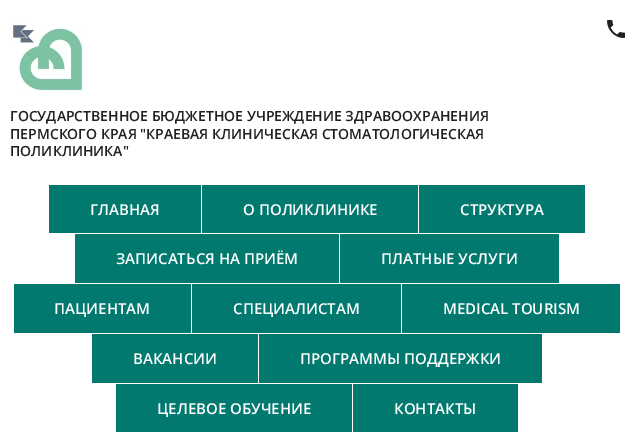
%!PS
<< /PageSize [635 443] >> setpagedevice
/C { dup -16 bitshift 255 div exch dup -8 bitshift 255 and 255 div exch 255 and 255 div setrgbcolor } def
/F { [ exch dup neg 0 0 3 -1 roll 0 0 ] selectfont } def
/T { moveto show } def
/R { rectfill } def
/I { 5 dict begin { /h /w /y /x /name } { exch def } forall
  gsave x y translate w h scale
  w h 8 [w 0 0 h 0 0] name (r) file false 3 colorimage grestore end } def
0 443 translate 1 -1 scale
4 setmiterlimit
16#FFFFFF C
0 0 635 443 R
(1.rgb) 607 20 18 18 I
(2.rgb) 10 20 73 71 I
/OpenSans-SemiBold 14 F
16#212121 C
(ГОСУДАРСТВЕННОЕ БЮДЖЕТНОЕ УЧРЕЖДЕНИЕ ЗДРАВООХРАНЕНИЯ) 10 121 T
(ПЕРМСКОГО КРАЯ "КРАЕВАЯ КЛИНИЧЕСКАЯ СТОМАТОЛОГИЧЕСКАЯ) 10 139 T
(ПОЛИКЛИНИКА") 10 156 T
16#01796F C
49 185 152 48 R
/OpenSans-SemiBold 15 F
16#FFFFFF C
(ГЛАВНАЯ) 90 215 T
16#01796F C
202 185 216 48 R
16#FFFFFF C
(О ПОЛИКЛИНИКЕ) 243 215 T
16#01796F C
419 185 166 48 R
16#FFFFFF C
(СТРУКТУРА) 460 215 T
16#01796F C
75 234 264 49 R
16#FFFFFF C
(ЗАПИСАТЬСЯ НА ПРИЁМ) 116 264 T
16#01796F C
340 234 219 49 R
16#FFFFFF C
(ПЛАТНЫЕ УСЛУГИ) 381 264 T
16#01796F C
14 284 177 49 R
16#FFFFFF C
(ПАЦИЕНТАМ) 54 314 T
16#01796F C
192 284 209 49 R
16#FFFFFF C
(СПЕЦИАЛИСТАМ) 233 314 T
16#01796F C
402 284 218 49 R
16#FFFFFF C
(MEDICAL TOURISM) 443 314 T
16#01796F C
92 334 166 49 R
16#FFFFFF C
(ВАКАНСИИ) 133 364 T
16#01796F C
259 334 283 49 R
16#FFFFFF C
(ПРОГРАММЫ ПОДДЕРЖКИ) 300 364 T
16#01796F C
116 384 236 48 R
16#FFFFFF C
(ЦЕЛЕВОЕ ОБУЧЕНИЕ) 157 414 T
16#01796F C
353 384 165 48 R
16#FFFFFF C
(КОНТАКТЫ) 394 414 T
showpage
